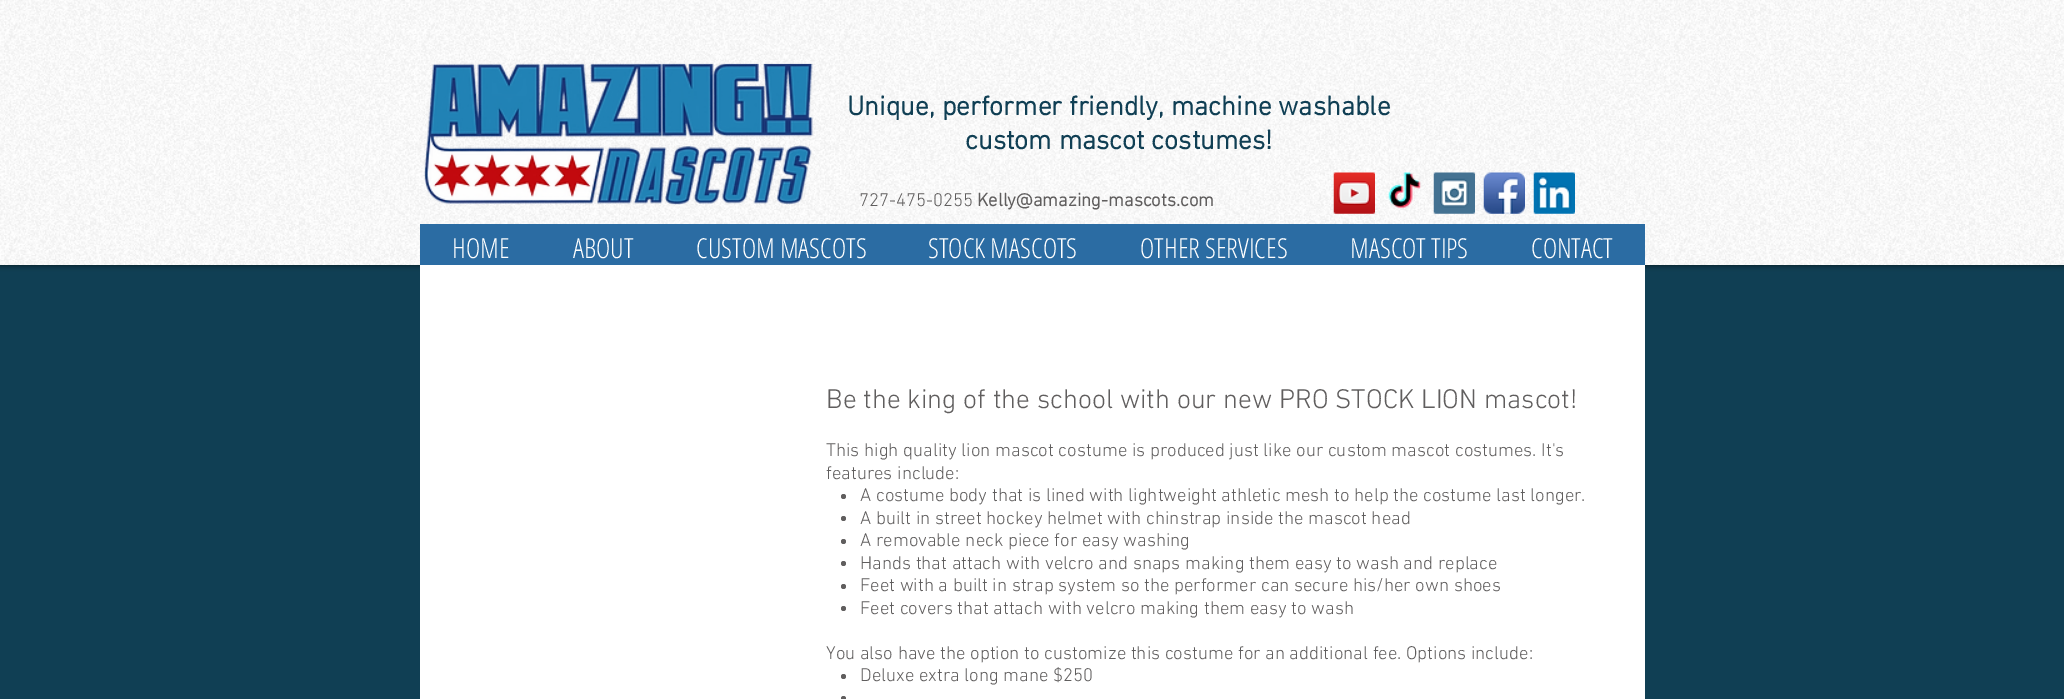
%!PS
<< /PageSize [2064 699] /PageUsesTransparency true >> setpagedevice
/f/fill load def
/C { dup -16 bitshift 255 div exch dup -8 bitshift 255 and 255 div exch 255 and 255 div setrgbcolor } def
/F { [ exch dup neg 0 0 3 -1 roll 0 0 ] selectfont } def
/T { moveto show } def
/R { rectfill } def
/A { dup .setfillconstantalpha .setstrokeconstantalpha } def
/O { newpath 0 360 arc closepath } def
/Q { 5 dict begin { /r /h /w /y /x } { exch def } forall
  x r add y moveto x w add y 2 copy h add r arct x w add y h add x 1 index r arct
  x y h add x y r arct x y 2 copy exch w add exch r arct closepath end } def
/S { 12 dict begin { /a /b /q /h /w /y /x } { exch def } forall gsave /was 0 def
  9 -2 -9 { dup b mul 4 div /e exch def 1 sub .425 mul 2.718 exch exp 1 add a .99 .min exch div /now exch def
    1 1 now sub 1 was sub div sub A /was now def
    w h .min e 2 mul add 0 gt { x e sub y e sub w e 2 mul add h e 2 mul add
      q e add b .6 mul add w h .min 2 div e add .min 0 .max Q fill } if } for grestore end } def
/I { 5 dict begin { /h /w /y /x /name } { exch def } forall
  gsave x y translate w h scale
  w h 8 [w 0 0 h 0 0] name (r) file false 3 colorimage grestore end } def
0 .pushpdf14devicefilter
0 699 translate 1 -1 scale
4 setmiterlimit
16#103F54 C
0 0 2064 699 R
16#000000 C
0 0 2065 265 0 3 .7 S
16#FFFFFF C
0 0 2064 265 R
(1.rgb) 0 0 2064 265 I
(2.rgb) 423 63 390 142 I
/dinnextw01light-Bold 27.5 F
16#103F54 C
(Unique, performer friendly, machine washable) 847 115 T
(custom mascot costumes!) 965 149 T
/dinnextw01light-Light 18.75 F
16#605E5E C
(727-475-0255) 859 206 T
/dinnextw01light-Bold 18.75 F
(Kelly@amazing-mascots.com) 977 206 T
(3.rgb) 1333 172 42 42 I
(4.rgb) 1388 172 33 37 I
(5.rgb) 1433 172 42 42 I
(6.rgb) 1483 172 42 42 I
(7.rgb) 1533 172 42 42 I
16#2B6CA3 C
420 224 1225 41 R
/OpenSansCondensed-Light 27.5 F
16#FFFFFF C
(HOME) 452 258 T
(ABOUT) 573 258 T
(CUSTOM MASCOTS) 696 258 T
(STOCK MASCOTS) 928 258 T
(OTHER SERVICES) 1140 258 T
(MASCOT TIPS) 1350 258 T
(CONTACT) 1531 258 T
420 265 1225 434 R
/dinnextw01light-Light 27.5 F
16#605E5E C
(Be the king of the school with our new PRO STOCK LION mascot!) 826 408 T
/dinnextw01light-Light 18.75 F
(This high quality lion mascot costume is produced just like our custom mascot costumes. It's) 826 456 T
(features include:) 826 479 T
843.5 496.5 2.5 O f
(A costume body that is lined with lightweight athletic mesh to help the costume last longer.) 860 501 T
843.5 518.5 2.5 O f
(A built in street hockey helmet with chinstrap inside the mascot head) 860 524 T
843.5 541.5 2.5 O f
(A removable neck piece for easy washing) 860 546 T
843.5 563.5 2.5 O f
(Hands that attach with velcro and snaps making them easy to wash and replace) 860 569 T
843.5 586.5 2.5 O f
(Feet with a built in strap system so the performer can secure his/her own shoes) 860 591 T
843.5 608.5 2.5 O f
(Feet covers that attach with velcro making them easy to wash) 860 614 T
(You also have the option to customize this costume for an additional fee. Options include:) 826 659 T
843.5 676.5 2.5 O f
(Deluxe extra long mane $250) 860 681 T
843.5 698.5 2.5 O f
.poppdf14devicefilter showpage
